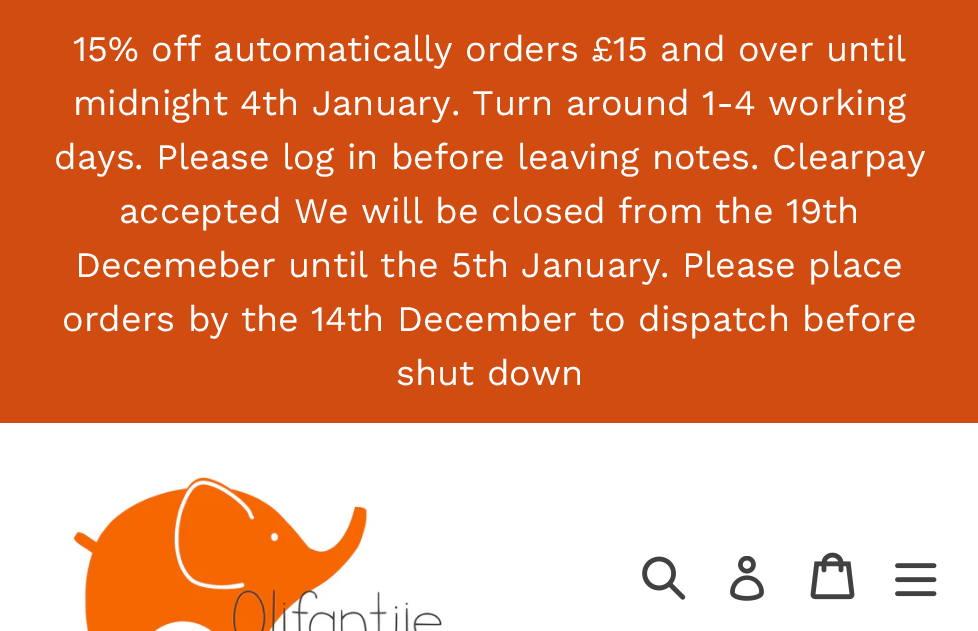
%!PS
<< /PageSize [978 631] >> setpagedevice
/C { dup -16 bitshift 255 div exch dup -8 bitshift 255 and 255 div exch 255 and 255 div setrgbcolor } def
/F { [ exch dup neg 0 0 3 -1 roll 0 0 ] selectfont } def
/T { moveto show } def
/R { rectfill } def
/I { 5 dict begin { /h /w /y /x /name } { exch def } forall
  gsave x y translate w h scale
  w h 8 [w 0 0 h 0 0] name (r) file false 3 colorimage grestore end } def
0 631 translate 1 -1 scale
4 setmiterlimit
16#FFFFFF C
0 0 978 631 R
16#D14C10 C
0 0 978 423 R
/WorkSans-Regular 36 F
16#FFFFFF C
(15% off automatically orders £15 and over until) 73 61 T
(midnight 4th January. Turn around 1-4 working) 73 115 T
(days. Please log in before leaving notes. Clearpay) 54 169 T
(accepted We will be closed from the 19th) 119 223 T
(Decemeber until the 5th January. Please place) 75 277 T
(orders by the 14th December to dispatch before) 62 331 T
(shut down) 396 385 T
(1.rgb) 71 477 371 154 I
(2.rgb) 642 556 44 44 I
(3.rgb) 730 556 34 45 I
(4.rgb) 810 552 45 48 I
(5.rgb) 895 563 42 34 I
showpage
